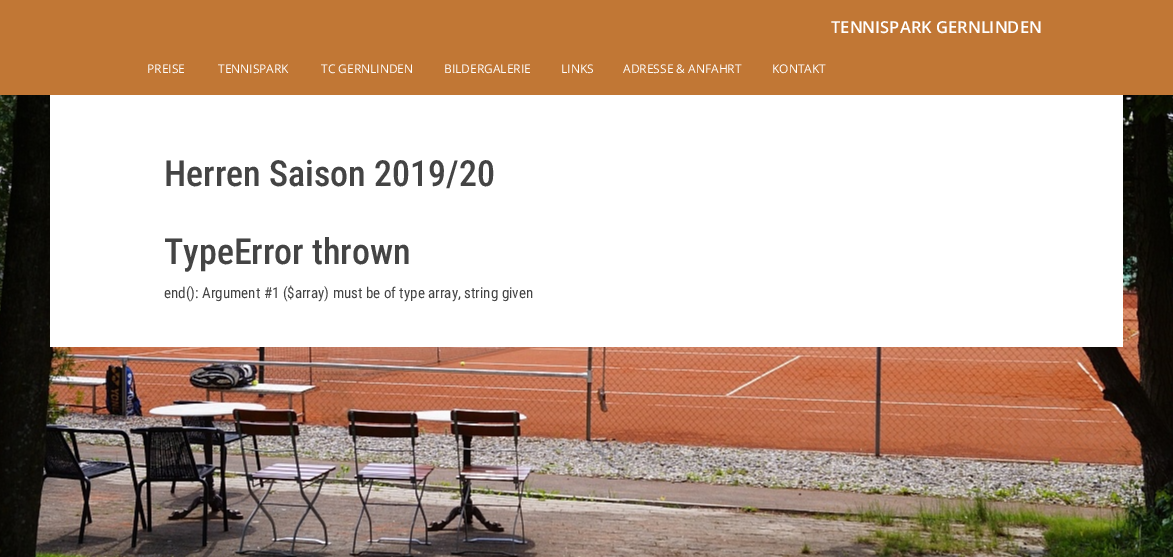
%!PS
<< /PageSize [1173 557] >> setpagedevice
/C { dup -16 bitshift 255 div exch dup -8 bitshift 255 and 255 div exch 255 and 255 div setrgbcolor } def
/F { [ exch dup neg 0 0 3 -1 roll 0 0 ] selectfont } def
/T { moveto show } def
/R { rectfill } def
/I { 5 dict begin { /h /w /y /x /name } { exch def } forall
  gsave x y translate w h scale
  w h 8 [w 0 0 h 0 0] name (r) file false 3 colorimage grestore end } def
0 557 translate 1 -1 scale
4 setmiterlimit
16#FFFFFF C
0 0 1173 557 R
(1.rgb) 0 95 1173 462 I
16#C17735 C
0 0 1173 95 R
/OpenSans-SemiBold 16.5 F
16#FFFFFF C
(TENNISPARK GERNLINDEN) 831 33 T
/OpenSans-Regular 12 F
(PREISE) 147 73 T
(TENNISPARK) 218 73 T
(TC GERNLINDEN) 321 73 T
(BILDERGALERIE) 444 73 T
(LINKS) 561 73 T
(ADRESSE & ANFAHRT) 623 73 T
(KONTAKT) 772 73 T
50 95 1073 252 R
/RobotoCondensed-Medium 36 F
16#444444 C
(Herren Saison 2019/20) 164 186 T
(TypeError thrown) 164 264 T
/RobotoCondensed-Regular 15 F
(end\(\): Argument #1 \($array\) must be of type array, string given) 164 298 T
showpage
